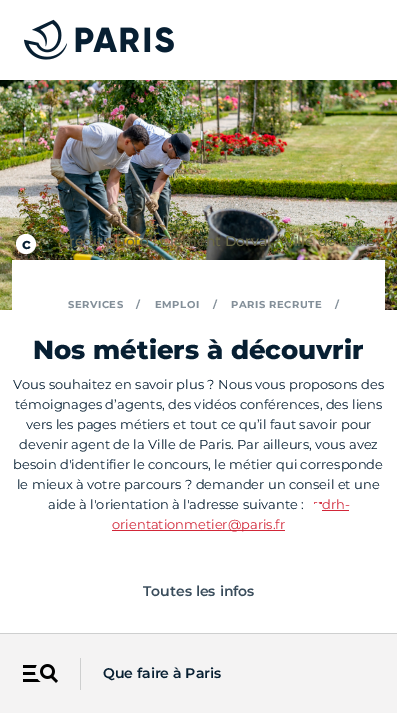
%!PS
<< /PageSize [397 713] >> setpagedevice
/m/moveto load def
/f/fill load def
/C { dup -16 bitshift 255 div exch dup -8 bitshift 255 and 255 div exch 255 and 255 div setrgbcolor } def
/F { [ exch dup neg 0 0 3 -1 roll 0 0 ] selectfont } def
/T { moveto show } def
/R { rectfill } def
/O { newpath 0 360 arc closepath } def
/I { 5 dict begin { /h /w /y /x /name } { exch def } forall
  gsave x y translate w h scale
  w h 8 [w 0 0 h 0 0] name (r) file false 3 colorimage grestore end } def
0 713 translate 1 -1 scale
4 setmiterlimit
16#FFFFFF C
0 0 397 713 R
(1.rgb) 0 80 397 230 I
26 244 10 O f
/Montserrat-Bold 15 F
16#071F32 C
(c) 22 249 T
/Montserrat-Medium 14 F
16#696847 C
(Crédit photo : Clément Dorval / Ville de Paris) 59 246 T
16#FFFFFF C
12 260 373 50 R
/Montserrat-Bold 10 F
16#838F99 C
68 308 m .5 0 (SERVICES) ashow
136 308 m .5 0 (/) ashow
155 308 m .5 0 (EMPLOI) ashow
213 308 m .5 0 (/) ashow
231 308 m .5 0 (PARIS RECRUTE) ashow
335 308 m .5 0 (/) ashow
/Montserrat-ExtraBold 26 F
16#071F32 C
(Nos métiers à découvrir) 33 359 T
/Montserrat-Regular 13 F
(Vous souhaitez en savoir plus ? Nous vous proposons des) 13 389 T
(témoignages d’agents, des vidéos conférences, des liens) 15 409 T
(vers les pages métiers et tout ce qu’il faut savoir pour) 26 429 T
(devenir agent de la Ville de Paris. Par ailleurs, vous avez) 19 449 T
(besoin d'identifier le concours, le métier qui corresponde) 13 469 T
(le mieux à votre parcours ? demander un conseil et une) 17 489 T
(aide à l'orientation à l'adresse suivante :) 48 509 T
(2.rgb) 314 502 8 2 I
16#D22638 C
(drh-) 322 509 T
322 510 27 1 R
112 530 173 1 R
(orientationmetier@paris.fr) 112 529 T
/Montserrat-SemiBold 14 F
16#394C5B C
(Toutes les infos) 143 596 T
(3.rgb) 24 19 150 41 I
16#F4F3F3 C
0 634 397 79 R
16#CECFCF C
0 633 397 1 R
(4.rgb) 23 664 35 19 I
80 658 1 32 R
16#071F32 C
(Que faire à Paris) 103 678 T
showpage
